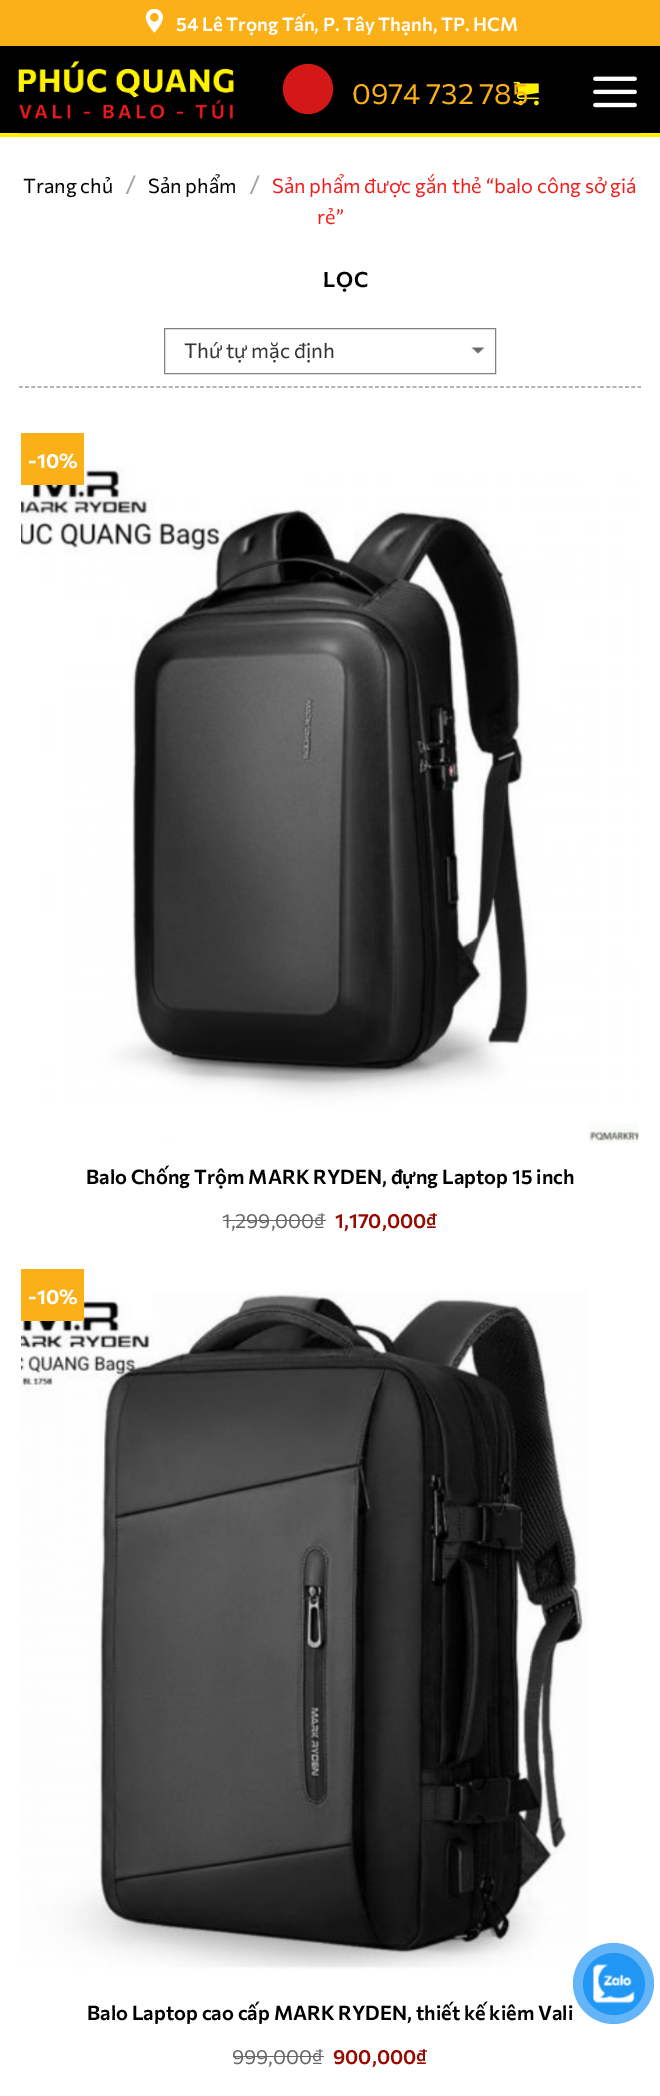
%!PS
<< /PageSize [660 2096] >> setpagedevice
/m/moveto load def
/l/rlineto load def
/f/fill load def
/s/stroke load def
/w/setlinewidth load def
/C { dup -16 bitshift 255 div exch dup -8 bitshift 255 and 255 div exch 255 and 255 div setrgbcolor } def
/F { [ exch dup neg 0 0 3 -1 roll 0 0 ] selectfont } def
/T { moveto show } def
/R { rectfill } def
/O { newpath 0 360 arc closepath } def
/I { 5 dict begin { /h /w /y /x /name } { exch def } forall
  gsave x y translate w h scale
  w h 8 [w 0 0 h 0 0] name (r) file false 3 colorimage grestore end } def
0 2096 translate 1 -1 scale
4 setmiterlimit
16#FFFFFF C
0 0 660 2096 R
16#FCB017 C
0 0 660 46 R
(1.rgb) 145 9 18 24 I
/Commissioner-SemiBold 18.75 F
16#FFFFFF C
(54 Lê Trọng Tấn, P. Tây Thạnh, TP. HCM) 176 31 T
16#000000 C
0 46 660 87 R
16#FFF100 C
0 133 660 4 R
(2.rgb) 18 61 216 58 I
(3.rgb) 513 81 26 25 I
(4.rgb) 593 76 44 32 I
16#E6D900 C
19 133 622 1 R
16#D41818 C
308 89 25 O f
/Commissioner-Regular 28.75 F
16#FCB017 C
(0974 732 785) 352 104 T
16#999999 C
1.2 w
[3.75 2.5] 0 setdash
19 387 m 622 0 l s
/Commissioner-Regular 20 F
16#000000 C
(Trang chủ) 23 193 T
/Commissioner-Regular 26 F
16#A6A6A6 C
(/) 125 194 T
/Commissioner-Regular 20 F
16#000000 C
(Sản phẩm) 148 193 T
/Commissioner-Regular 26 F
16#A6A6A6 C
(/) 249 194 T
/Commissioner-Regular 20 F
16#F21E1D C
(Sản phẩm được gắn thẻ “balo công sở giá) 272 193 T
(rẻ”) 317 224 T
/Commissioner-SemiBold 21 F
16#000000 C
323 287 m 1 0 (LỌC) ashow
(5.rgb) 471 347 14 7 I
16#818181 C
1 w
[] 0 setdash
164.5 328.5 331 45 rectstroke
/Commissioner-Regular 20.5 F
16#333333 C
(Thứ tự mặc định) 184 358 T
(6.rgb) 21 466 618 677 I
16#FCB017 C
21 433 63 52 R
/Commissioner-Bold 20 F
16#FFFFFF C
(-10%) 28 468 T
/Commissioner-SemiBold 20 F
16#000000 C
(Balo Chống Trộm MARK RYDEN, đựng Laptop 15 inch) 86 1184 T
/Commissioner-Regular 20 F
16#666666 C
(1,299,000₫) 222 1228 T
223 1220 103 1 R
/Commissioner-SemiBold 20 F
16#980901 C
(1,170,000₫) 335 1228 T
(7.rgb) 21 1291 567 678 I
16#FCB017 C
21 1269 63 52 R
/Commissioner-Bold 20 F
16#FFFFFF C
(-10%) 28 1304 T
/Commissioner-SemiBold 20 F
16#000000 C
(Balo Laptop cao cấp MARK RYDEN, thiết kế kiêm Vali) 87 2020 T
/Commissioner-Regular 20 F
16#666666 C
(999,000₫) 232 2064 T
233 2056 91 1 R
/Commissioner-SemiBold 20 F
16#980901 C
(900,000₫) 333 2064 T
16#64B5F7 C
613.5 1983.5 40.5 O f
16#2196F3 C
614 1984 31 O f
(8.rgb) 592 1964 43 40 I
showpage
